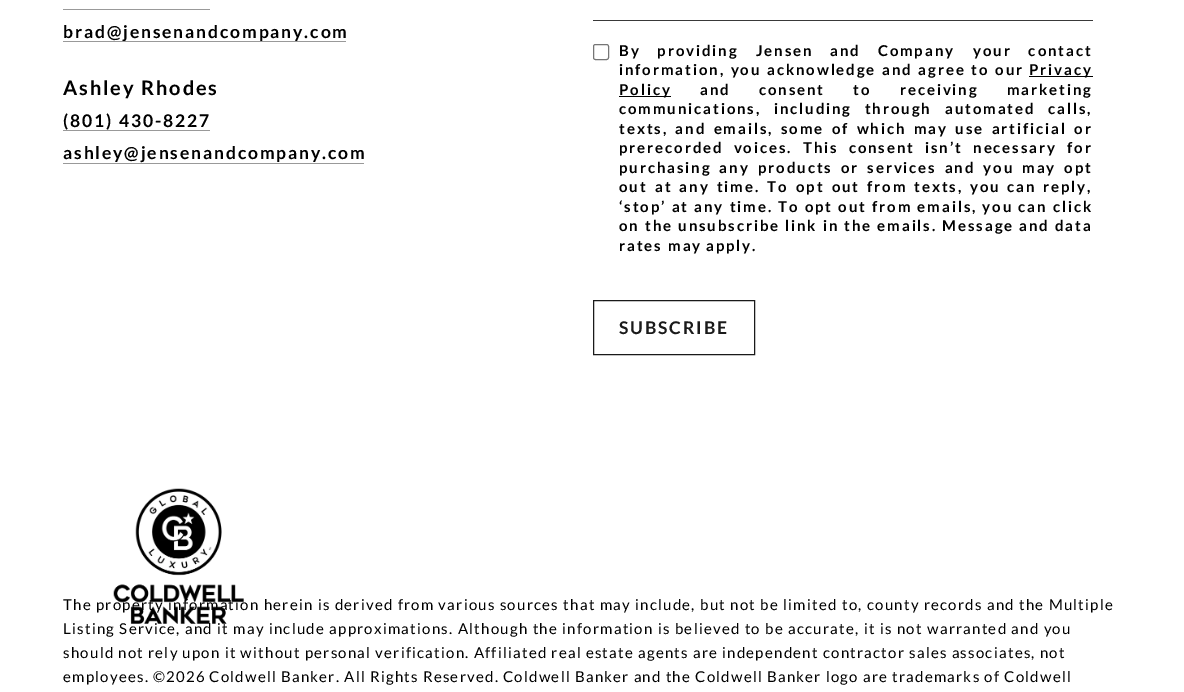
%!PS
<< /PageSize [1184 692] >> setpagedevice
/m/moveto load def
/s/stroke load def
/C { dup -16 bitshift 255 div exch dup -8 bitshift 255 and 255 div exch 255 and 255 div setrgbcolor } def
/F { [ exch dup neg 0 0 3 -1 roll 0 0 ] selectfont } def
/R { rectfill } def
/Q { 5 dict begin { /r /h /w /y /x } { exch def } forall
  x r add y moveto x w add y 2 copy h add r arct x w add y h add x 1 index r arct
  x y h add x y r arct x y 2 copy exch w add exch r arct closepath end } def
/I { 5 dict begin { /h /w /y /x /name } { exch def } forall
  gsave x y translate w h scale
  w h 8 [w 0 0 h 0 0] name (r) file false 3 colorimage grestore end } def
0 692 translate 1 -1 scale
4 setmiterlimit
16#FFFFFF C
0 0 1184 692 R
16#999999 C
63 9 147 1 R
/Lato-Bold 17.5 F
16#000000 C
63 38 m 1.88 0 (brad@jensenandcompany.com) ashow
16#999999 C
63 41 283 1 R
/Lato-Bold 20 F
16#000000 C
63 95 m 1.88 0 (Ashley Rhodes) ashow
/Lato-Bold 17.5 F
63 127 m 1.88 0 (\(801\) 430-8227) ashow
16#999999 C
63 130 147 1 R
16#000000 C
63 159 m 1.88 0 (ashley@jensenandcompany.com) ashow
16#999999 C
63 163 301 1 R
16#393939 C
593 20 500 1 R
16#767676 C
593.5 44.5 15 15 2 Q s
/Lato-Bold 15 F
16#000000 C
619 56 m 12 0 32 1.88 0 (By providing) awidthshow
756 56 m 12 0 32 1.88 0 (Jensen and Company) awidthshow
973 56 m 12 0 32 1.88 0 (your contact) awidthshow
619 75 m 1 0 32 1.88 0 (information, you acknowledge and agree to our) awidthshow
1029 76 64 1 R
1029 75 m 1.88 0 (Privacy) ashow
619 96 52 1 R
619 95 m 1.88 0 (Policy) ashow
700 95 m 23.5 0 32 1.88 0 (and consent to receiving marketing) awidthshow
619 114 m 8 0 32 1.88 0 (communications, including through) awidthshow
945 114 m 8 0 32 1.88 0 (automated calls,) awidthshow
619 134 m 2.75 0 32 1.88 0 (texts, and emails, some of which may use artificial or) awidthshow
619 153 m 5.5 0 32 1.88 0 (prerecorded voices. This consent isn’t necessary for) awidthshow
619 173 m 3.25 0 32 1.88 0 (purchasing any) awidthshow
758 173 m 3.25 0 32 1.88 0 (products or services and you may opt) awidthshow
619 192 m 2.5 0 32 1.88 0 (out at any time. To opt out from) awidthshow
914 192 m 2 0 32 1.88 0 (texts, you can reply,) awidthshow
619 212 m .5 0 32 1.88 0 (‘stop’ at any time. To opt out from emails, you) awidthshow
1018 212 m 1 0 32 1.88 0 (can click) awidthshow
619 231 m .4 0 32 1.88 0 (on the unsubscribe link in the emails. Message and data) awidthshow
619 251 m 1.88 0 (rates) ashow
668 251 m -1 0 32 1.88 0 (may apply.) awidthshow
16#1A1A1A C
593.5 300.5 161 54 rectstroke
/Lato-Bold 17.5 F
619 334 m 1.88 0 (SUBSCRIBE) ashow
(1.rgb) 113 488 131 136 I
/Lato-Regular 15 F
16#000000 C
63 610 m 1.25 0 (The property information herein is derived from various sources that may include, but not be limited to, county records and the Multiple) ashow
63 634 m 1.25 0 (Listing Service, and it may include approximations. Although the information is believed to be accurate, it is not warranted and you) ashow
63 658 m -.25 0 32 1.25 0 (should not rely upon it without personal verification. Affiliated real estate agents are independent contractor sales associates, not) awidthshow
63 682 m 1.25 0 (employees. ©) ashow
166 682 m 1.25 0 (2026) ashow
209 682 m -.2 0 32 1.25 0 (Coldwell Banker. All Rights Reserved. Coldwell Banker and the Coldwell Banker logo are trademarks of Coldwell) awidthshow
showpage
